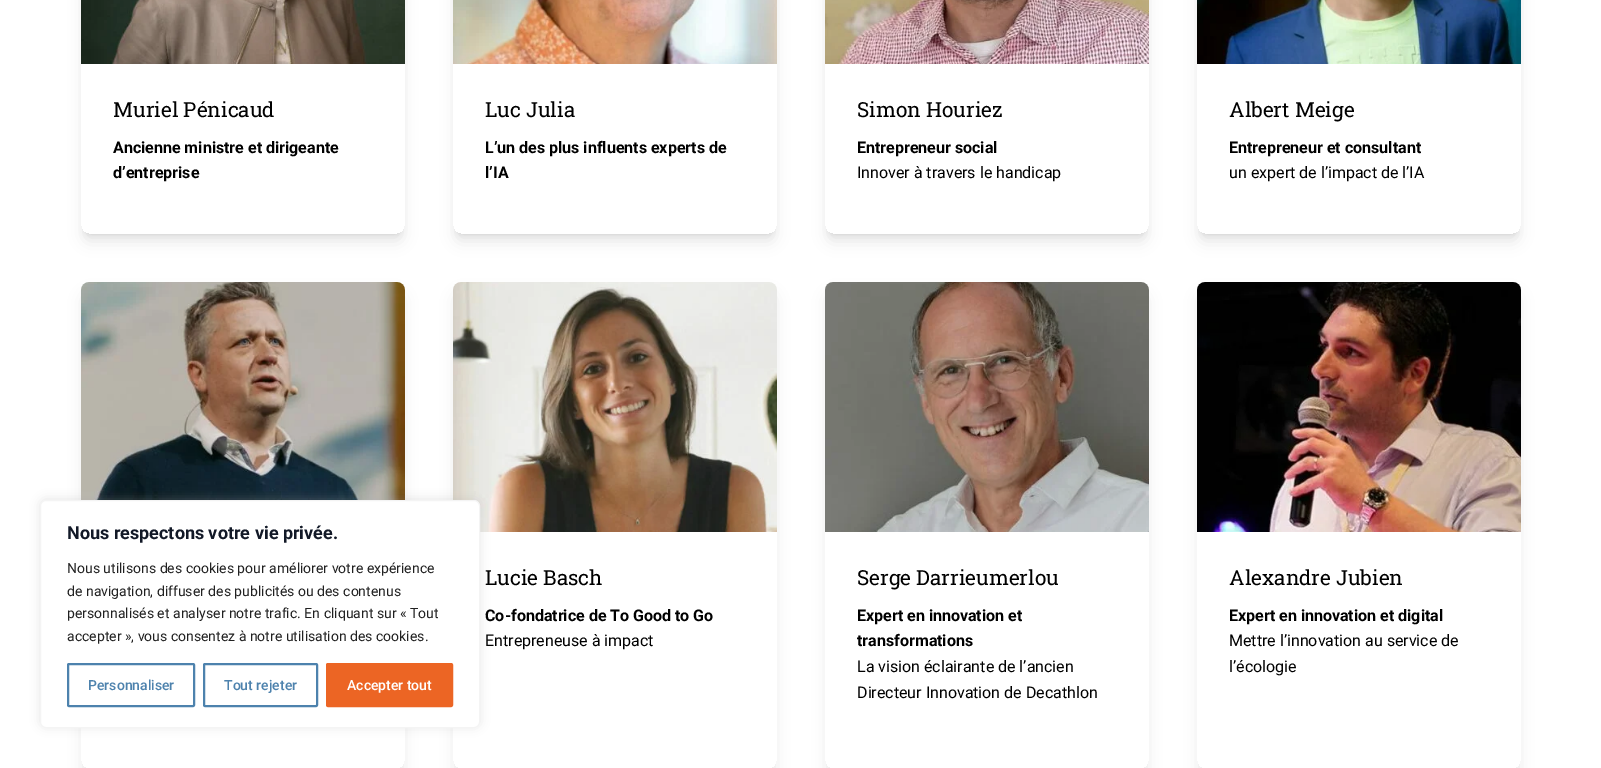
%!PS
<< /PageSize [1601 768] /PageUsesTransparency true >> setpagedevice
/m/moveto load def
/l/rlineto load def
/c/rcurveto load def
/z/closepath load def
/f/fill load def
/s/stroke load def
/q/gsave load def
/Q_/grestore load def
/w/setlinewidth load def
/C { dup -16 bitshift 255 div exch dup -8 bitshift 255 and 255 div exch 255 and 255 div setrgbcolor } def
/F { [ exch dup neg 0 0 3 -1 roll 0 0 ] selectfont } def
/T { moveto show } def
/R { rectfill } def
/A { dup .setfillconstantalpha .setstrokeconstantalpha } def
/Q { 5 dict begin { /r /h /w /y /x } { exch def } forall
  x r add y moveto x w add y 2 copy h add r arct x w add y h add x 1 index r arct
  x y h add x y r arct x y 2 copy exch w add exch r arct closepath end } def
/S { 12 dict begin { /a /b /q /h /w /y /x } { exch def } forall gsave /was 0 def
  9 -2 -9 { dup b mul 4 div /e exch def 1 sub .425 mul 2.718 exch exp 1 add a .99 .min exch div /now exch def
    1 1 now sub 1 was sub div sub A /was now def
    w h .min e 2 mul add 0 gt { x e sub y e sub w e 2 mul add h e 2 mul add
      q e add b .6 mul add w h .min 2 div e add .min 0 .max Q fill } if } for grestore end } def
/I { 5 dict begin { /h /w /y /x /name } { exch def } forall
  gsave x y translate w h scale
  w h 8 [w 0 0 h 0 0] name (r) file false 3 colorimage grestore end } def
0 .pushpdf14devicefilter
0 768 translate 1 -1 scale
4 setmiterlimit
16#FFFFFF C
0 0 1601 768 R
q
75 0 m 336 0 l 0 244 l -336 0 l z 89 -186 m 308 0 l 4.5 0 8 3.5 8 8 c 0 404 l 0 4.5 -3.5 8 -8 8 c -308 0 l -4.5 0 -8 -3.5 -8 -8 c 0 -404 l 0 -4.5 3.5 -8 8 -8 c z eoclip newpath
16#000000 C
85 -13 316 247 4 3 .1 S
Q_
q
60 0 m 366 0 l 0 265 l -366 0 l z 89 -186 m 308 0 l 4.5 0 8 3.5 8 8 c 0 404 l 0 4.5 -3.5 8 -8 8 c -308 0 l -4.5 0 -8 -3.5 -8 -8 c 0 -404 l 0 -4.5 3.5 -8 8 -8 c z eoclip newpath
16#000000 C
84 -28 318 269 5 7.5 .1 S
Q_
(1.rgb) 81 0 324 64 I
/RobotoSlab-Regular 20.75 F
16#000000 C
(Muriel Pénicaud) 113 117 T
/Roboto-Bold 16 F
(Ancienne ministre et dirigeante) 113 153 T
(d’entreprise) 113 178 T
q
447 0 m 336 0 l 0 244 l -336 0 l z 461 -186 m 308 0 l 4.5 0 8 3.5 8 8 c 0 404 l 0 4.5 -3.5 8 -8 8 c -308 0 l -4.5 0 -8 -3.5 -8 -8 c 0 -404 l 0 -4.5 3.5 -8 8 -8 c z eoclip newpath
457 -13 316 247 4 3 .1 S
Q_
q
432 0 m 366 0 l 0 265 l -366 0 l z 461 -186 m 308 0 l 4.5 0 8 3.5 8 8 c 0 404 l 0 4.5 -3.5 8 -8 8 c -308 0 l -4.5 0 -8 -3.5 -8 -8 c 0 -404 l 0 -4.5 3.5 -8 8 -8 c z eoclip newpath
456 -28 318 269 5 7.5 .1 S
Q_
(2.rgb) 453 0 324 64 I
/RobotoSlab-Regular 20.75 F
(Luc Julia) 485 117 T
/Roboto-Bold 16 F
(L’un des plus influents experts de) 485 153 T
(l’IA) 485 178 T
q
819 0 m 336 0 l 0 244 l -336 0 l z 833 -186 m 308 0 l 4.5 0 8 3.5 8 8 c 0 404 l 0 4.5 -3.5 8 -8 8 c -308 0 l -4.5 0 -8 -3.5 -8 -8 c 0 -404 l 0 -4.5 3.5 -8 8 -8 c z eoclip newpath
829 -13 316 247 4 3 .1 S
Q_
q
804 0 m 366 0 l 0 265 l -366 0 l z 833 -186 m 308 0 l 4.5 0 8 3.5 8 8 c 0 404 l 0 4.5 -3.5 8 -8 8 c -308 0 l -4.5 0 -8 -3.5 -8 -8 c 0 -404 l 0 -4.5 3.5 -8 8 -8 c z eoclip newpath
828 -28 318 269 5 7.5 .1 S
Q_
(3.rgb) 825 0 324 64 I
/RobotoSlab-Regular 20.75 F
(Simon Houriez) 857 117 T
/Roboto-Bold 16 F
(Entrepreneur social) 857 153 T
/Roboto-Regular 16 F
(Innover à travers le handicap) 857 178 T
q
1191 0 m 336 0 l 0 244 l -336 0 l z 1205 -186 m 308 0 l 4.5 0 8 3.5 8 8 c 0 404 l 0 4.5 -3.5 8 -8 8 c -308 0 l -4.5 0 -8 -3.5 -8 -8 c 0 -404 l 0 -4.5 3.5 -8 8 -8 c z eoclip newpath
1201 -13 316 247 4 3 .1 S
Q_
q
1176 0 m 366 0 l 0 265 l -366 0 l z 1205 -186 m 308 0 l 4.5 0 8 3.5 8 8 c 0 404 l 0 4.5 -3.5 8 -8 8 c -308 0 l -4.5 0 -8 -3.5 -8 -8 c 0 -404 l 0 -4.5 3.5 -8 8 -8 c z eoclip newpath
1200 -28 318 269 5 7.5 .1 S
Q_
(4.rgb) 1197 0 324 64 I
/RobotoSlab-Regular 20.75 F
(Albert Meige) 1229 117 T
/Roboto-Bold 16 F
(Entrepreneur et consultant) 1229 153 T
/Roboto-Regular 16 F
(un expert de l’impact de l’IA) 1229 178 T
q
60 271 m 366 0 l 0 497 l -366 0 l z 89 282 m 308 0 l 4.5 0 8 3.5 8 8 c 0 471 l 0 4.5 -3.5 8 -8 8 c -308 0 l -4.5 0 -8 -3.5 -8 -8 c 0 -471 l 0 -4.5 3.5 -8 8 -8 c z eoclip newpath
84 295 318 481 5 7.5 .1 S
Q_
(5.rgb) 81 282 324 218 I
q
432 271 m 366 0 l 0 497 l -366 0 l z 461 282 m 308 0 l 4.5 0 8 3.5 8 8 c 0 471 l 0 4.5 -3.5 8 -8 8 c -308 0 l -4.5 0 -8 -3.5 -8 -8 c 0 -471 l 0 -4.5 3.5 -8 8 -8 c z eoclip newpath
456 295 318 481 5 7.5 .1 S
Q_
(6.rgb) 453 282 324 250 I
/RobotoSlab-Regular 20.75 F
(Lucie Basch) 485 585 T
/Roboto-Bold 16 F
(Co-fondatrice de To Good to Go) 485 621 T
/Roboto-Regular 16 F
(Entrepreneuse à impact) 485 646 T
q
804 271 m 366 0 l 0 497 l -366 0 l z 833 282 m 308 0 l 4.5 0 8 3.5 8 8 c 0 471 l 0 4.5 -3.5 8 -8 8 c -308 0 l -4.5 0 -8 -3.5 -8 -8 c 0 -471 l 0 -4.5 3.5 -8 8 -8 c z eoclip newpath
828 295 318 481 5 7.5 .1 S
Q_
(7.rgb) 825 282 324 250 I
/RobotoSlab-Regular 20.75 F
(Serge Darrieumerlou) 857 585 T
/Roboto-Bold 16 F
(Expert en innovation et) 857 621 T
(transformations) 857 646 T
/Roboto-Regular 16 F
(La vision éclairante de l’ancien) 857 672 T
(Directeur Innovation de Decathlon) 857 698 T
q
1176 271 m 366 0 l 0 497 l -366 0 l z 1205 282 m 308 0 l 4.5 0 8 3.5 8 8 c 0 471 l 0 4.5 -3.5 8 -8 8 c -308 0 l -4.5 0 -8 -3.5 -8 -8 c 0 -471 l 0 -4.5 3.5 -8 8 -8 c z eoclip newpath
1200 295 318 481 5 7.5 .1 S
Q_
(8.rgb) 1197 282 324 250 I
/RobotoSlab-Regular 20.75 F
(Alexandre Jubien) 1229 585 T
/Roboto-Bold 16 F
(Expert en innovation et digital) 1229 621 T
/Roboto-Regular 16 F
(Mettre l’innovation au service de) 1229 646 T
(l’écologie) 1229 672 T
16#ACABAB C
40 499 440 228 6 5 .3 S
16#FFFFFF C
40.5 500.5 439 227 5.5 Q q f Q_
16#F4F4F4 C
s
/Roboto-Bold 18 F
16#121927 C
(Nous respectons votre vie privée.) 67 539 T
/Roboto-Regular 14 F
16#212121 C
(Nous utilisons des cookies pour améliorer votre expérience) 67 573 T
(de navigation, diffuser des publicités ou des contenus) 67 596 T
(personnalisés et analyser notre trafic. En cliquant sur « Tout) 67 618 T
(accepter », vous consentez à notre utilisation des cookies.) 67 641 T
16#4D82AD C
2 w
68 664 126 42 1 Q s
/Roboto-Medium 14 F
(Personnaliser) 88 690 T
204 664 113 42 1 Q s
(Tout rejeter) 224 690 T
16#EC6524 C
327 664 125 42 1 Q q f Q_
s
16#FFFFFF C
(Accepter tout) 347 690 T
.poppdf14devicefilter showpage
